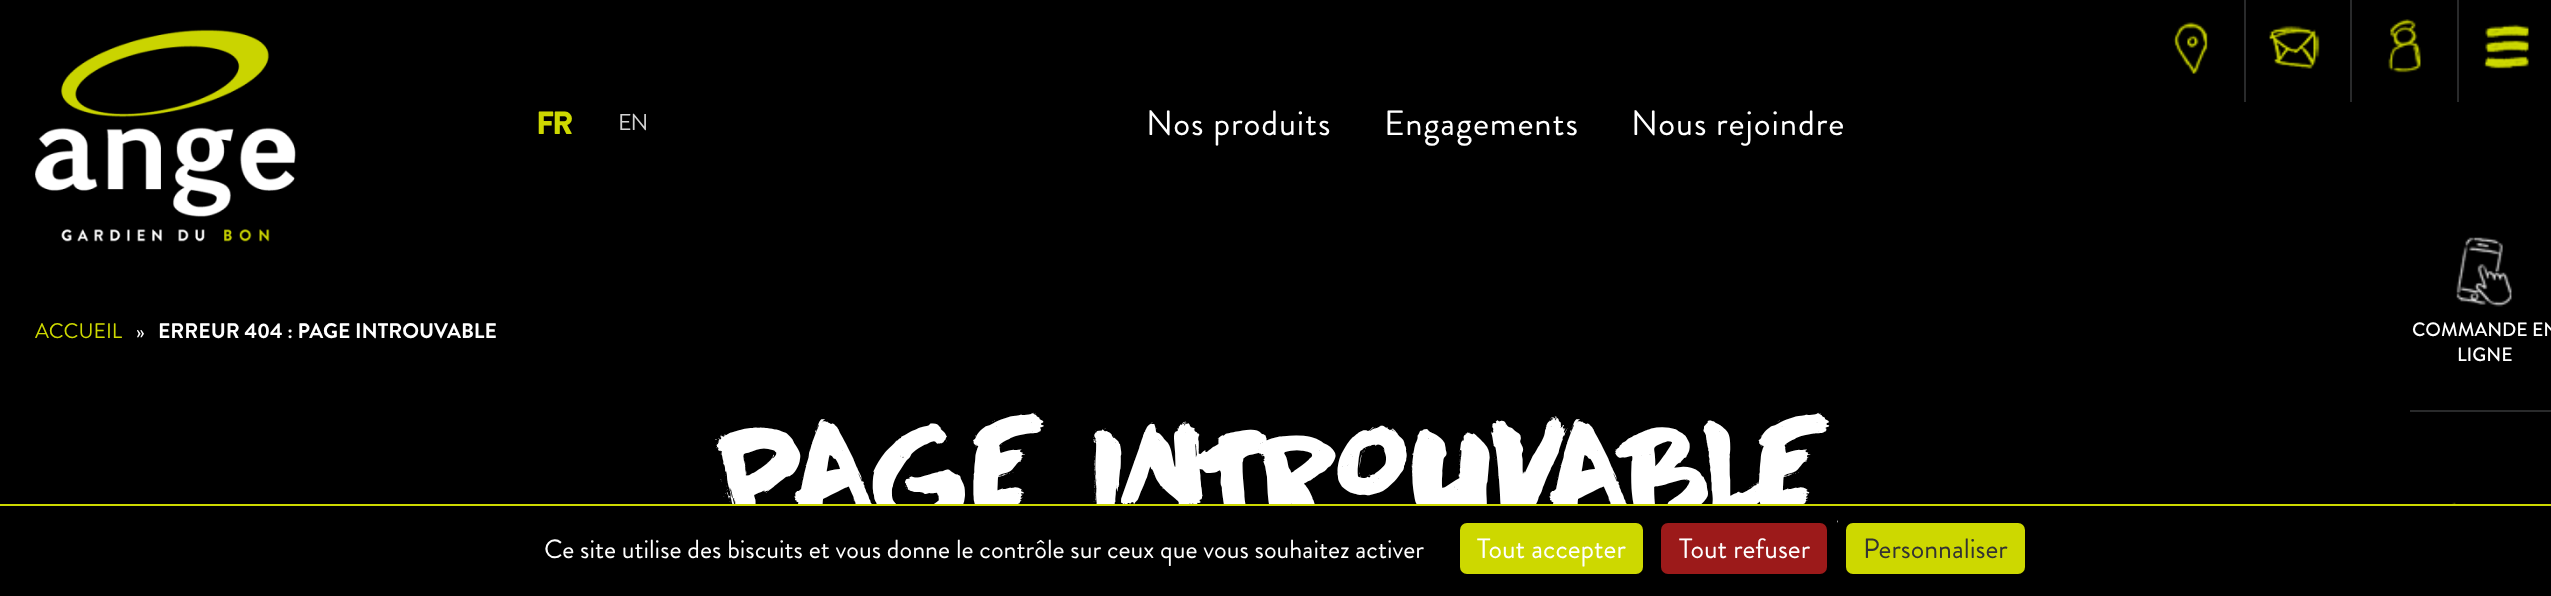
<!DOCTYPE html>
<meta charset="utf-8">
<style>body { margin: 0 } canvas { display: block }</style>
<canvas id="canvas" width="2551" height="596"></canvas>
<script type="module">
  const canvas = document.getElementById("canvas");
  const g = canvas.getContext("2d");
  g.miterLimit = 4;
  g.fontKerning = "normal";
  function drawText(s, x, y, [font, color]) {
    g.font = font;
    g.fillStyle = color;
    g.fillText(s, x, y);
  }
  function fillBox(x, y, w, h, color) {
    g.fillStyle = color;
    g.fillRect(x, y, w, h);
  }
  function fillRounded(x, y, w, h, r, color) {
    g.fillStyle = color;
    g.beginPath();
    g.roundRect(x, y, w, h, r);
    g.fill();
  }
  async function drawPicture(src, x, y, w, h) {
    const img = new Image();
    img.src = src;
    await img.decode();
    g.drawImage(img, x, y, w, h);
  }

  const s1 = ["900 32px Brandon Grotesque", "#CDD800"];
  const s2 = ["23px Brandon Grotesque", "#D3D3D3"];
  const s3 = ["35px Brandon Grotesque", "#FFFFFF"];
  const s4 = ["21px Brandon Grotesque", "#CDD800"];
  const s5 = ["21px Brandon Grotesque", "#FFFFFF"];
  const s6 = ["bold 21px Brandon Grotesque", "#FFFFFF"];
  const s7 = ["134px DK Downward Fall", "#FFFFFF"];
  const s8 = ["500 19.25px Brandon Grotesque", "#FFFFFF"];
  const s9 = ["26.25px Brandon Grotesque", "#FFFFFF"];
  const s10 = ["28px Brandon Grotesque", "#FFFFFF"];
  const s11 = ["28px Brandon Grotesque", "#333333"];

  fillBox(0, 0, 2551, 596, "#000000");
  await drawPicture("pic1.png", 35, 29, 261, 213);
  g.letterSpacing = "-2px";
  drawText("FR", 536, 134, s1);
  g.letterSpacing = "-1px";
  drawText("EN", 618, 130, s2);
  g.letterSpacing = "0.9px";
  drawText("Nos produits", 1146, 135, s3);
  drawText("Engagements", 1384, 135, s3);
  drawText("Nous rejoindre", 1631, 135, s3);
  await drawPicture("pic2.png", 2173, 22, 35, 52);
  fillBox(2244, 0, 2, 102, "#292A2B");
  await drawPicture("pic3.png", 2269, 25, 51, 44);
  fillBox(2350, 0, 2, 102, "#292A2B");
  await drawPicture("pic4.png", 2388, 19, 33, 54);
  fillBox(2457, 0, 2, 102, "#292A2B");
  await drawPicture("pic5.png", 2483, 24, 46, 45);
  g.letterSpacing = "0px";
  drawText("ACCUEIL", 35, 338, s4);
  drawText("»", 136, 338, s5);
  drawText("ERREUR 404 : PAGE INTROUVABLE", 158, 338, s6);
  drawText("PAGE INTROUVABLE.", 711, 527, s7);
  fillBox(2410, 410, 141, 2, "#292A2B");
  await drawPicture("pic6.png", 2456, 237, 56, 70);
  drawText("COMMANDE EN", 2412, 336, s8);
  drawText("LIGNE", 2457, 361, s8);
  await drawPicture("pic7.png", 2452, 502, 4, 2);
  fillBox(732, 506, 1105, 41, "#000000");
  fillBox(0, 504, 2551, 2, "#CDD800");
  drawText("Ce site utilise des biscuits et vous donne le contrôle sur ceux que vous souhaitez activer", 544, 558, s9);
  fillRounded(1460, 523, 183, 51, 7, "#CDD800");
  drawText("Tout accepter", 1477, 558, s10);
  fillRounded(1661, 523, 166, 51, 7, "#9C1A1A");
  drawText("Tout refuser", 1679, 558, s10);
  fillRounded(1846, 523, 179, 51, 7, "#CDD800");
  drawText("Personnaliser", 1863, 558, s11);
</script>
